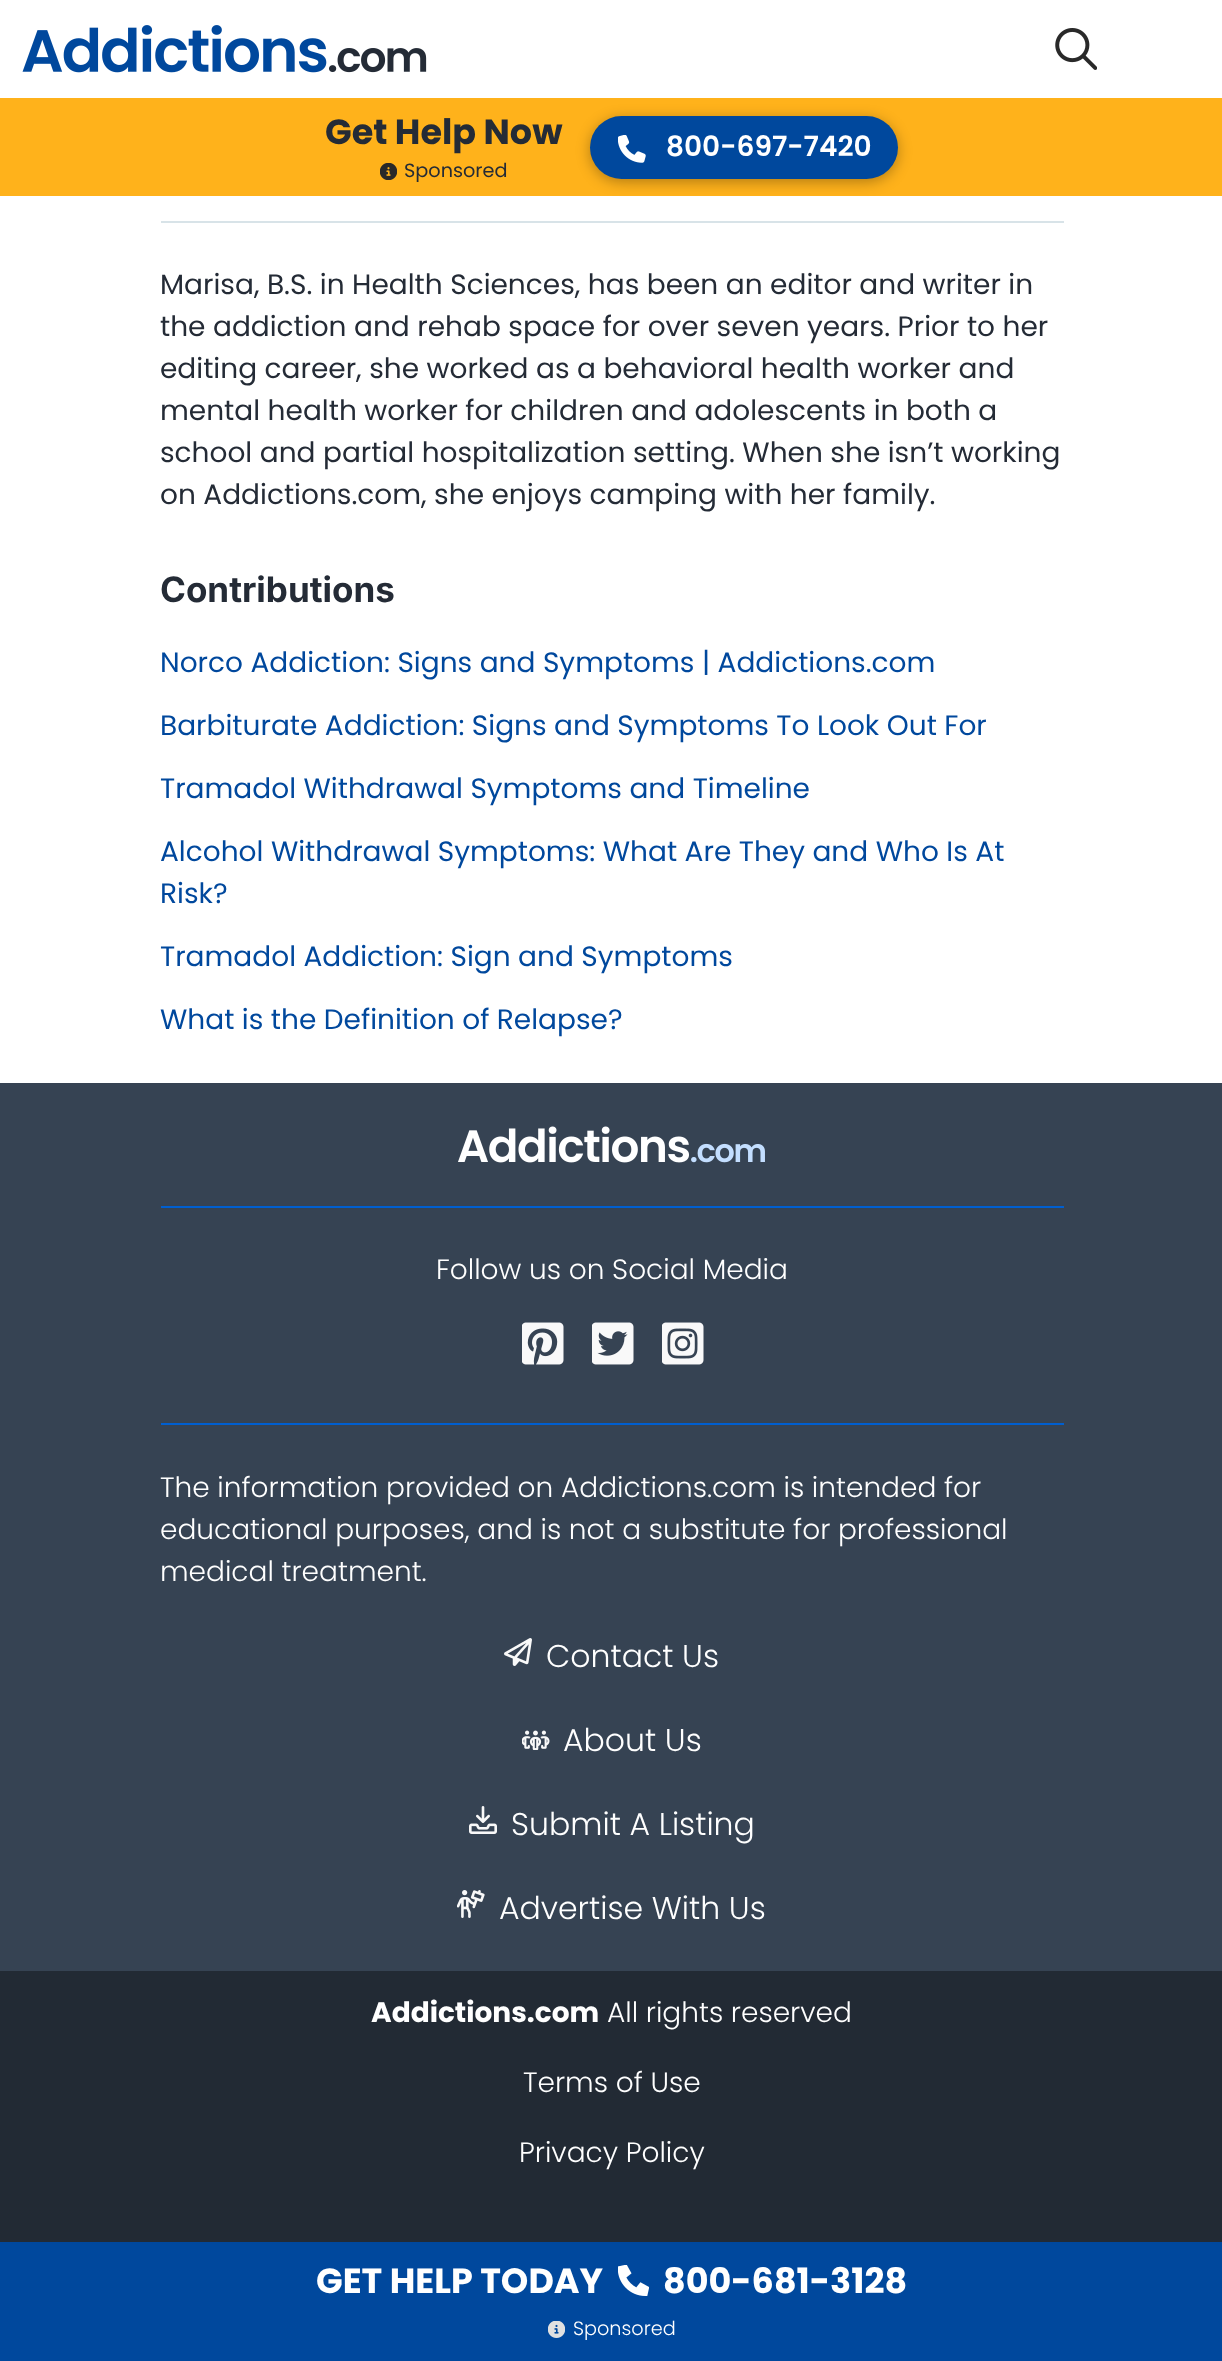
<!DOCTYPE html>
<meta charset="utf-8">
<style>body { margin: 0 } canvas { display: block }</style>
<canvas id="canvas" width="1222" height="2361"></canvas>
<script type="module">
  const canvas = document.getElementById("canvas");
  const g = canvas.getContext("2d");
  g.miterLimit = 4;
  g.fontKerning = "normal";
  function drawText(s, x, y, [font, color]) {
    g.font = font;
    g.fillStyle = color;
    g.fillText(s, x, y);
  }
  function fillBox(x, y, w, h, color) {
    g.fillStyle = color;
    g.fillRect(x, y, w, h);
  }
  function fillRounded(x, y, w, h, r, color) {
    g.fillStyle = color;
    g.beginPath();
    g.roundRect(x, y, w, h, r);
    g.fill();
  }
  async function drawPicture(src, x, y, w, h) {
    const img = new Image();
    img.src = src;
    await img.decode();
    g.drawImage(img, x, y, w, h);
  }

  const s1 = ["bold 35px Poppins", "#242B36"];
  const s2 = ["600 28px Poppins", "#FFFFFF"];
  const s3 = ["19.25px Poppins", "#242B36"];
  const s4 = ["28px Poppins", "#242B36"];
  const s5 = ["bold 35px Inter", "#242B36"];
  const s6 = ["28px Poppins", "#00489D"];
  const s7 = ["300 28px Poppins", "#FFFFFF"];
  const s8 = ["300 31.5px Poppins", "#FFFFFF"];
  const s9 = ["bold 28px Poppins", "#FFFFFF"];
  const s10 = ["bold 35px Poppins", "#FFFFFF"];
  const s11 = ["300 19.25px Poppins", "#FFFFFF"];

  fillBox(0, 0, 1222, 2361, "#FFFFFF");
  await drawPicture("pic1.png", 22, 25, 405, 48);
  await drawPicture("pic2.png", 1055, 28, 42, 42);
  fillBox(0, 98, 1222, 98, "#FFB21B");
  drawText("Get Help Now", 325, 144, s1);
  g.fillStyle = "rgba(0, 0, 0, 0.3)";
  g.filter = "blur(7px)";
  g.beginPath();
  g.roundRect(590, 119, 308, 63, 31.5);
  g.fill();
  g.filter = "none";
  fillRounded(590, 116, 308, 63, 31.5, "#00489D");
  await drawPicture("pic3.png", 618, 135, 28, 28);
  drawText("800-697-7420", 666, 156, s2);
  await drawPicture("pic4.png", 380, 163, 17, 17);
  drawText("Sponsored", 404, 177, s3);
  fillBox(161, 221, 903, 2, "#D8E3E8");
  drawText("Marisa, B.S. in Health Sciences, has been an editor and writer in", 160, 294, s4);
  drawText("the addiction and rehab space for over seven years. Prior to her", 160, 336, s4);
  drawText("editing career, she worked as a behavioral health worker and", 160, 378, s4);
  drawText("mental health worker for children and adolescents in both a", 160, 420, s4);
  drawText("school and partial hospitalization setting. When she isn’t working", 160, 462, s4);
  drawText("on Addictions.com, she enjoys camping with her family.", 160, 504, s4);
  drawText("Contributions", 160, 602, s5);
  drawText("Norco Addiction: Signs and Symptoms | Addictions.com", 160, 672, s6);
  drawText("Barbiturate Addiction: Signs and Symptoms To Look Out For", 160, 735, s6);
  drawText("Tramadol Withdrawal Symptoms and Timeline", 160, 798, s6);
  drawText("Alcohol Withdrawal Symptoms: What Are They and Who Is At", 160, 861, s6);
  drawText("Risk?", 160, 903, s6);
  drawText("Tramadol Addiction: Sign and Symptoms", 160, 966, s6);
  drawText("What is the Definition of Relapse?", 160, 1029, s6);
  fillBox(0, 1971, 1222, 271, "#222A34");
  fillBox(0, 1083, 1222, 888, "#364353");
  await drawPicture("pic5.png", 458, 1126, 307, 37);
  fillBox(161, 1206, 903, 2, "#005FD0");
  fillBox(161, 1423, 903, 2, "#005FD0");
  drawText("Follow us on Social Media", 436, 1279, s7);
  await drawPicture("pic6.png", 522, 1322, 42, 43);
  await drawPicture("pic7.png", 592, 1322, 42, 43);
  await drawPicture("pic8.png", 662, 1322, 42, 43);
  drawText("The information provided on Addictions.com is intended for", 160, 1497, s7);
  drawText("educational purposes, and is not a substitute for professional", 160, 1539, s7);
  drawText("medical treatment.", 160, 1581, s7);
  await drawPicture("pic9.png", 504, 1638, 28, 28);
  drawText("Contact Us", 546, 1667, s8);
  await drawPicture("pic10.png", 522, 1730, 28, 20);
  drawText("About Us", 563, 1751, s8);
  await drawPicture("pic11.png", 469, 1806, 28, 28);
  drawText("Submit A Listing", 511, 1835, s8);
  await drawPicture("pic12.png", 457, 1890, 28, 28);
  drawText("Advertise With Us", 499, 1919, s8);
  drawText("Addictions.com", 371, 2022, s9);
  drawText("All rights reserved", 607, 2022, s7);
  drawText("Terms of Use", 523, 2092, s7);
  drawText("Privacy Policy", 519, 2162, s7);
  fillBox(0, 2242, 1222, 119, "#00489D");
  drawText("GET HELP TODAY", 316, 2293, s10);
  await drawPicture("pic13.png", 618, 2265, 31, 31);
  drawText("800-681-3128", 663, 2293, s10);
  await drawPicture("pic14.png", 548, 2321, 17, 17);
  drawText("Sponsored", 573, 2335, s11);
</script>
